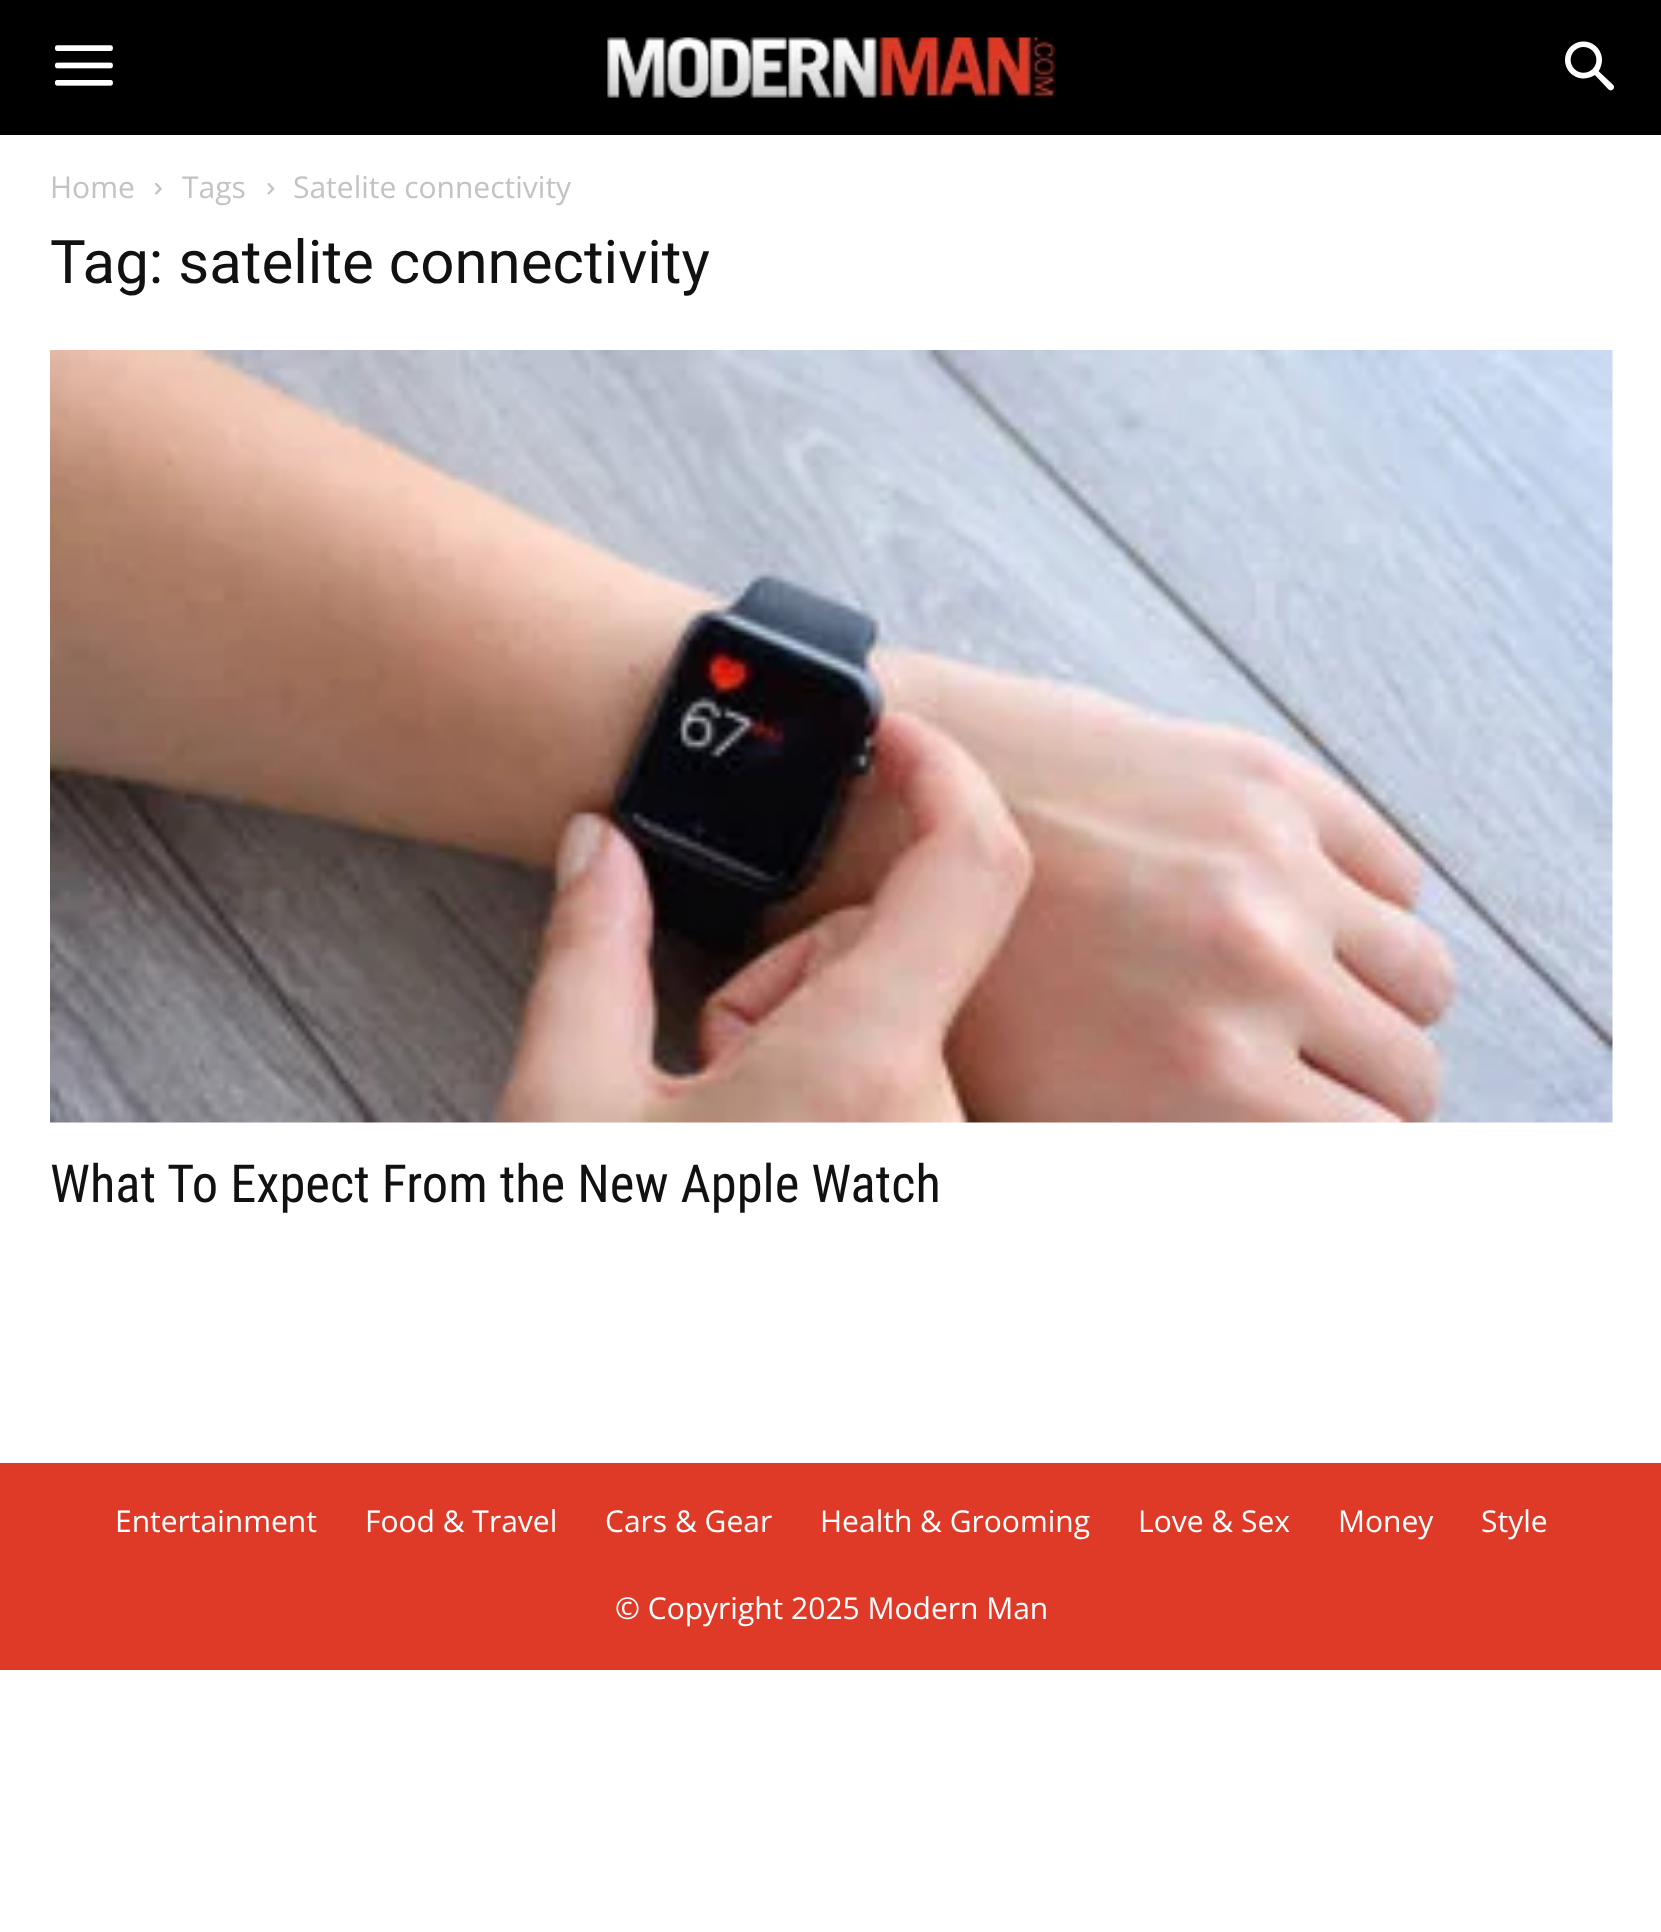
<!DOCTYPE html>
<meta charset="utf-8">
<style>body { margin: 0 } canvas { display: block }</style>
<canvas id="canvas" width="1661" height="1932"></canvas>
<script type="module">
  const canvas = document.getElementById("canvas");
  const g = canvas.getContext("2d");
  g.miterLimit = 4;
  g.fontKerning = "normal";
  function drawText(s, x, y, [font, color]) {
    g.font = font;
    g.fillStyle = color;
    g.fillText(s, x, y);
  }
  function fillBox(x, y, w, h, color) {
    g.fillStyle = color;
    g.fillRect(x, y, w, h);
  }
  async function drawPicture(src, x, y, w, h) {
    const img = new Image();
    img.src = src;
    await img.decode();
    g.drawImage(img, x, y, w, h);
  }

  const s1 = ["30px Open Sans", "#C3C3C3"];
  const s2 = ["60px Roboto", "#111111"];
  const s3 = ["52.5px Roboto Condensed", "#111111"];
  const s4 = ["30px Open Sans", "#FFFFFF"];

  fillBox(0, 0, 1661, 1932, "#FFFFFF");
  fillBox(0, 0, 1661, 135, "#000000");
  await drawPicture("pic1.png", 55, 45, 58, 41);
  await drawPicture("pic2.png", 607, 37, 448, 61);
  await drawPicture("pic3.png", 1565, 41, 49, 50);
  drawText("Home", 50, 198, s1);
  await drawPicture("pic4.png", 155, 183, 7, 12);
  drawText("Tags", 182, 198, s1);
  await drawPicture("pic5.png", 267, 183, 8, 12);
  drawText("Satelite connectivity", 293, 198, s1);
  drawText("Tag: satelite connectivity", 50, 283, s2);
  await drawPicture("pic6.png", 50, 350, 1563, 773);
  drawText("What To Expect From the New Apple Watch", 50, 1202, s3);
  fillBox(0, 1463, 1661, 207, "#DF3A27");
  drawText("Entertainment", 115, 1532, s4);
  drawText("Food & Travel", 365, 1532, s4);
  drawText("Cars & Gear", 605, 1532, s4);
  drawText("Health & Grooming", 820, 1532, s4);
  drawText("Love & Sex", 1138, 1532, s4);
  drawText("Money", 1338, 1532, s4);
  drawText("Style", 1481, 1532, s4);
  drawText("© Copyright 2025 Modern Man", 615, 1619, s4);
</script>
